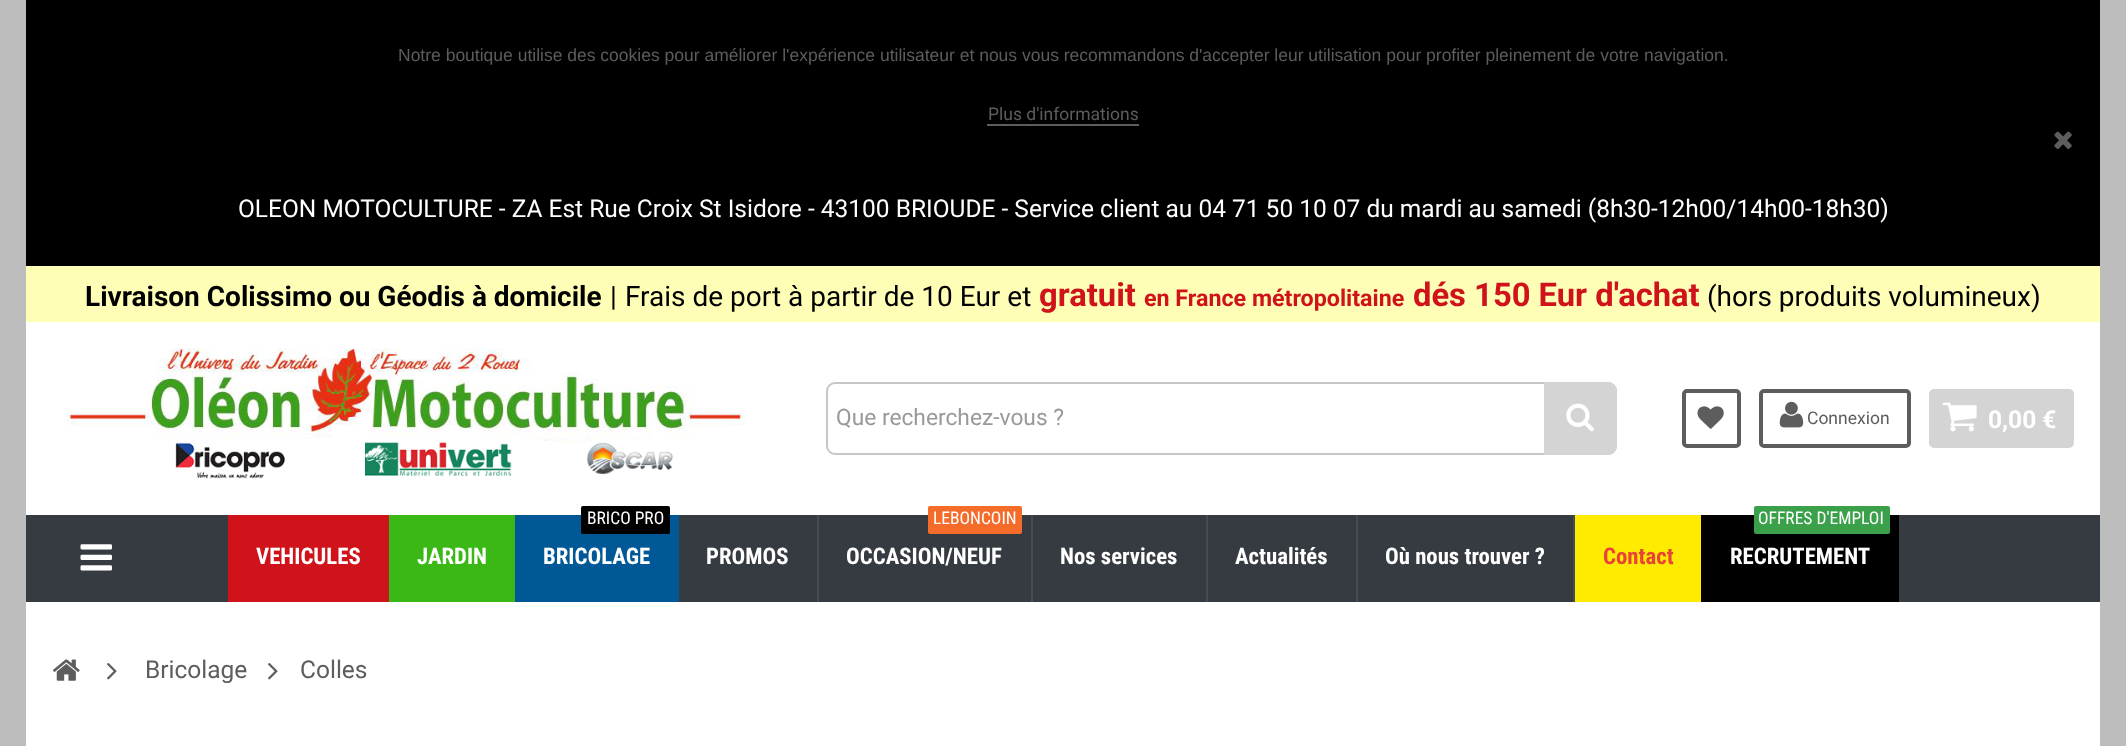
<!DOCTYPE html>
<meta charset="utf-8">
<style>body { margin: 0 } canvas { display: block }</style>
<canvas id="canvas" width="2126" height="746"></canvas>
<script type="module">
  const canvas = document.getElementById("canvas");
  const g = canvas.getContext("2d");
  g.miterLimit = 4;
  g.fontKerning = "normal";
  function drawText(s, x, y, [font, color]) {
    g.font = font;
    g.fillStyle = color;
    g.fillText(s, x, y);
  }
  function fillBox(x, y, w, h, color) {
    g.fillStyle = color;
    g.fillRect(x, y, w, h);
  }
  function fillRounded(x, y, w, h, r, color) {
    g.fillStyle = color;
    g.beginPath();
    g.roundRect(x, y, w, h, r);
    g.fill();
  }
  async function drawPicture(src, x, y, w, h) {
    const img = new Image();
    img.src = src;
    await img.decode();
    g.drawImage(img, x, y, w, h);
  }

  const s1 = ["17.5px Liberation Sans", "#5D5D5D"];
  const s2 = ["17.5px Roboto", "#5D5D5D"];
  const s3 = ["24.5px Roboto", "#FFFFFF"];
  const s4 = ["bold 28px Roboto", "#000000"];
  const s5 = ["28px Roboto", "#000000"];
  const s6 = ["bold 32.75px Roboto", "#D0121A"];
  const s7 = ["bold 23.25px Roboto", "#D0121A"];
  const s8 = ["22.75px Roboto", "#999999"];
  const s9 = ["bold 24.5px Roboto", "#FFFFFF"];
  const s10 = ["bold 22.75px Roboto Condensed", "#FFFFFF"];
  const s11 = ["17.5px Roboto Condensed", "#FFFFFF"];
  const s12 = ["bold 22.75px Roboto Condensed", "#E84335"];
  const s13 = ["24.5px Roboto", "#5D5D5D"];

  fillBox(0, 0, 2126, 746, "#BDBDBD");
  fillBox(26, 0, 2074, 266, "#000000");
  drawText("Notre boutique utilise des cookies pour améliorer l'expérience utilisateur et nous vous recommandons d'accepter leur utilisation pour profiter pleinement de votre navigation.", 398, 61, s1);
  drawText("Plus d'informations", 988, 120, s2);
  fillBox(987, 124, 152, 2, "#5D5D5D");
  await drawPicture("pic1.png", 2054, 131, 18, 18);
  drawText("OLEON MOTOCULTURE - ZA Est Rue Croix St Isidore - 43100 BRIOUDE - Service client au 04 71 50 10 07 du mardi au samedi (8h30-12h00/14h00-18h30)", 238, 217, s3);
  fillBox(26, 266, 2074, 56, "#FEFEB6");
  drawText("Livraison Colissimo ou Géodis à domicile", 85, 306, s4);
  drawText("|", 610, 306, s5);
  drawText("Frais de port à partir de 10 Eur et", 625, 306, s5);
  drawText("gratuit", 1039, 306, s6);
  drawText("en France métropolitaine", 1144, 306, s7);
  drawText("dés 150 Eur d'achat", 1413, 306, s6);
  drawText("(hors produits volumineux)", 1707, 306, s5);
  fillBox(26, 322, 2074, 424, "#FFFFFF");
  await drawPicture("pic2.png", 63, 348, 682, 131);
  g.beginPath();
  g.roundRect(827, 383, 789, 71, 8);
  g.strokeStyle = "#C7C7C7";
  g.lineWidth = 2;
  g.stroke();
  drawText("Que recherchez-vous ?", 836, 425, s8);
  g.fillStyle = "#D4D4D4";
  g.beginPath();
  g.roundRect(1544, 382, 73, 73, [0, 9, 9, 0]);
  g.fill();
  await drawPicture("pic3.png", 1566, 403, 28, 29);
  g.beginPath();
  g.roundRect(1684, 391, 55, 55, 3);
  g.strokeStyle = "#5D5D5D";
  g.lineWidth = 4;
  g.stroke();
  await drawPicture("pic4.png", 1697, 406, 27, 23);
  g.beginPath();
  g.roundRect(1761, 391, 148, 55, 3);
  g.stroke();
  await drawPicture("pic5.png", 1779, 401, 25, 27);
  drawText("Connexion", 1807, 424, s2);
  fillRounded(1929, 389, 145, 59, 5, "#D4D4D4");
  await drawPicture("pic6.png", 1942, 402, 35, 30);
  drawText("0,00 €", 1988, 428, s9);
  fillBox(26, 515, 2074, 87, "#363A41");
  await drawPicture("pic7.png", 80, 544, 32, 27);
  fillBox(228, 515, 161, 87, "#D0121A");
  drawText("VEHICULES", 256, 564, s10);
  fillBox(389, 515, 126, 87, "#3AB916");
  drawText("JARDIN", 417, 564, s10);
  fillBox(515, 515, 164, 87, "#005996");
  fillRounded(581, 506, 89, 28, 2, "#000000");
  drawText("BRICO PRO", 587, 524, s11);
  drawText("BRICOLAGE", 543, 564, s10);
  fillBox(817, 515, 2, 87, "#464B54");
  drawText("PROMOS", 706, 564, s10);
  fillBox(1031, 515, 2, 87, "#464B54");
  fillRounded(928, 506, 94, 28, 2, "#F56B2A");
  drawText("LEBONCOIN", 933, 524, s11);
  drawText("OCCASION/NEUF", 846, 564, s10);
  fillBox(1206, 515, 2, 87, "#464B54");
  drawText("Nos services", 1060, 564, s10);
  fillBox(1356, 515, 2, 87, "#464B54");
  drawText("Actualités", 1235, 564, s10);
  fillBox(1573, 515, 2, 87, "#464B54");
  drawText("Où nous trouver ?", 1385, 564, s10);
  fillBox(1575, 515, 126, 87, "#FFEB01");
  drawText("Contact", 1603, 564, s12);
  fillBox(1701, 515, 198, 87, "#000000");
  fillRounded(1754, 506, 136, 28, 2, "#3AA04A");
  drawText("OFFRES D'EMPLOI", 1758, 524, s11);
  drawText("RECRUTEMENT", 1730, 564, s10);
  await drawPicture("pic8.png", 53, 659, 27, 22);
  await drawPicture("pic9.png", 107, 663, 10, 17);
  drawText("Bricolage", 145, 678, s13);
  await drawPicture("pic9.png", 268, 663, 10, 17);
  drawText("Colles", 300, 678, s13);
</script>
